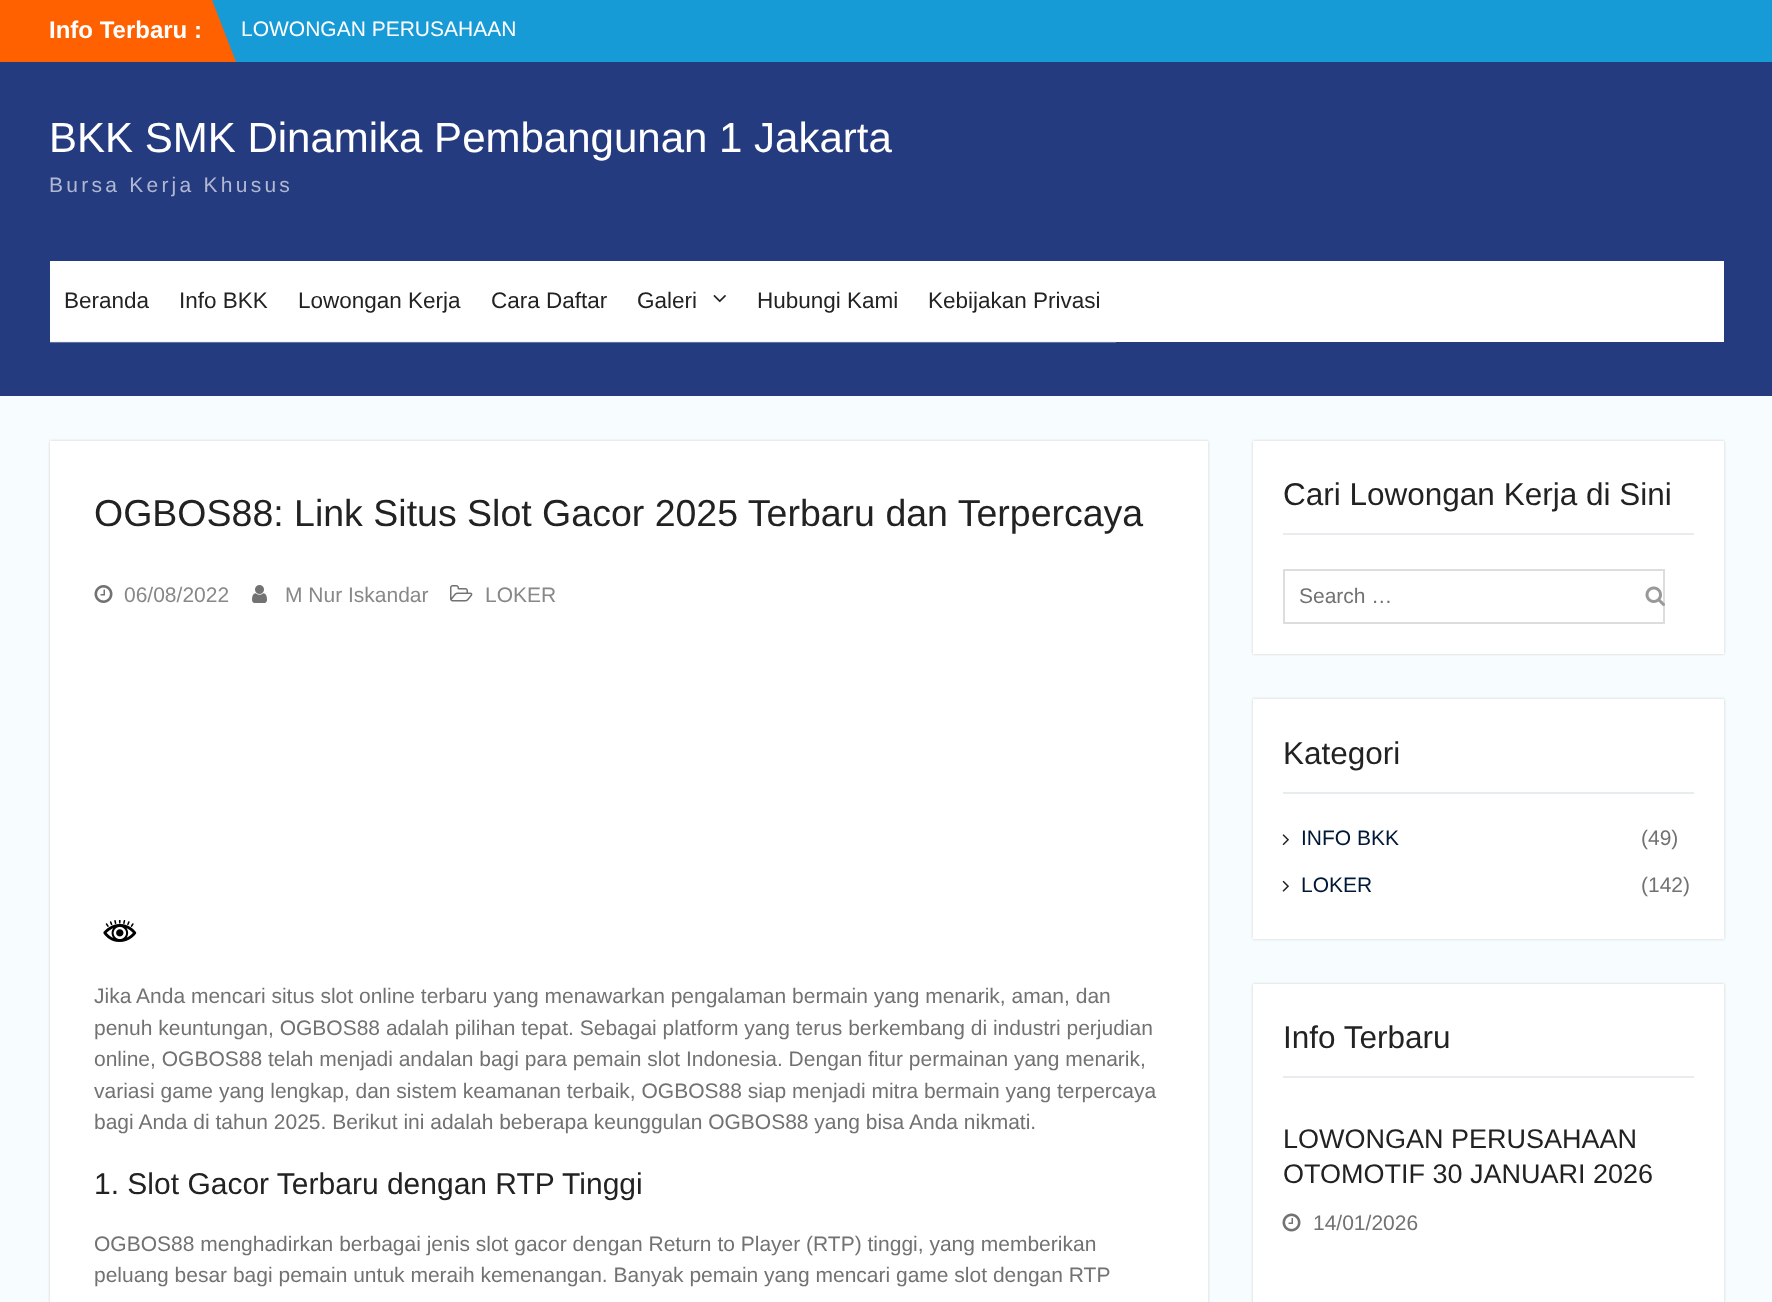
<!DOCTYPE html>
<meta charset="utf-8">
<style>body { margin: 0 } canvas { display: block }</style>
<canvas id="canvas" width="1772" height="1302"></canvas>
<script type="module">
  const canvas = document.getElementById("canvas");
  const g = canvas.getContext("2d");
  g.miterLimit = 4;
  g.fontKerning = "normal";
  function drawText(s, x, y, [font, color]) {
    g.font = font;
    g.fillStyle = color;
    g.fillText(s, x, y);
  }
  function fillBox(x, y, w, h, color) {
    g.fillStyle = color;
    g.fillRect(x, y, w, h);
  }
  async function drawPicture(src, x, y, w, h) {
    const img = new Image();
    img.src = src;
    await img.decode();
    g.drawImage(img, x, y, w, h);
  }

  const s1 = ["bold 24px Liberation Sans", "#FFFFFF"];
  const s2 = ["21px Liberation Sans", "#FFFFFF"];
  const s3 = ["42px Liberation Sans", "#FFFFFF"];
  const s4 = ["21px Liberation Sans", "#B1B8D1"];
  const s5 = ["22.5px Liberation Sans", "#222222"];
  const s6 = ["37.5px Liberation Sans", "#222222"];
  const s7 = ["21px Liberation Sans", "#888888"];
  const s8 = ["21px Liberation Sans", "#727272"];
  const s9 = ["30px Liberation Sans", "#222222"];
  const s10 = ["31.5px Liberation Sans", "#222222"];
  const s11 = ["21px Liberation Sans", "#001837"];
  const s12 = ["27px Liberation Sans", "#222222"];

  fillBox(0, 0, 1772, 1302, "#F7FCFE");
  fillBox(212, 0, 1560, 62, "#179BD7");
  fillBox(0, 0, 212, 62, "#FF6000");
  drawText("Info Terbaru :", 49, 38, s1);
  g.fillStyle = "#FF6000";
  g.beginPath();
  g.moveTo(212, 62);
  g.lineTo(212, 0);
  g.lineTo(236, 62);
  g.closePath();
  g.fill();
  drawText("LOWONGAN PERUSAHAAN", 241, 36, s2);
  fillBox(0, 62, 1772, 334, "#253B80");
  drawText("BKK SMK Dinamika Pembangunan 1 Jakarta", 49, 152, s3);
  g.letterSpacing = "3.25px";
  drawText("Bursa Kerja Khusus", 49, 192, s4);
  fillBox(50, 261, 1674, 81, "#FFFFFF");
  fillBox(50, 341, 1066, 1, "#F3F3F3");
  g.letterSpacing = "0px";
  drawText("Beranda", 64, 308, s5);
  drawText("Info BKK", 179, 308, s5);
  drawText("Lowongan Kerja", 298, 308, s5);
  drawText("Cara Daftar", 491, 308, s5);
  drawText("Galeri", 637, 308, s5);
  await drawPicture("pic1.png", 713, 295, 13, 8);
  drawText("Hubungi Kami", 757, 308, s5);
  drawText("Kebijakan Privasi", 928, 308, s5);
  fillBox(50, 342, 1066, 1, "#6472A0");
  g.fillStyle = "#CFCFCF";
  g.filter = "blur(1.5px)";
  g.beginPath();
  g.rect(50, 441, 1158, 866);
  g.fill();
  g.filter = "none";
  fillBox(50, 441, 1158, 861, "#FFFFFF");
  drawText("OGBOS88: Link Situs Slot Gacor 2025 Terbaru dan Terpercaya", 94, 526, s6);
  await drawPicture("pic2.png", 94, 585, 19, 18);
  drawText("06/08/2022", 124, 602, s7);
  await drawPicture("pic3.png", 252, 585, 15, 18);
  drawText("M Nur Iskandar", 285, 602, s7);
  await drawPicture("pic4.png", 450, 585, 23, 17);
  drawText("LOKER", 485, 602, s7);
  await drawPicture("pic5.png", 103, 920, 34, 22);
  drawText("Jika Anda mencari situs slot online terbaru yang menawarkan pengalaman bermain yang menarik, aman, dan", 94, 1003, s8);
  drawText("penuh keuntungan, OGBOS88 adalah pilihan tepat. Sebagai platform yang terus berkembang di industri perjudian", 94, 1035, s8);
  drawText("online, OGBOS88 telah menjadi andalan bagi para pemain slot Indonesia. Dengan fitur permainan yang menarik,", 94, 1066, s8);
  drawText("variasi game yang lengkap, dan sistem keamanan terbaik, OGBOS88 siap menjadi mitra bermain yang terpercaya", 94, 1098, s8);
  drawText("bagi Anda di tahun 2025. Berikut ini adalah beberapa keunggulan OGBOS88 yang bisa Anda nikmati.", 94, 1129, s8);
  drawText("1. Slot Gacor Terbaru dengan RTP Tinggi", 94, 1194, s9);
  drawText("OGBOS88 menghadirkan berbagai jenis slot gacor dengan Return to Player (RTP) tinggi, yang memberikan", 94, 1251, s8);
  drawText("peluang besar bagi pemain untuk meraih kemenangan. Banyak pemain yang mencari game slot dengan RTP", 94, 1282, s8);
  g.fillStyle = "#CFCFCF";
  g.filter = "blur(1.5px)";
  g.beginPath();
  g.rect(1253, 441, 471, 213);
  g.fill();
  g.filter = "none";
  fillBox(1253, 441, 471, 213, "#FFFFFF");
  fillBox(1283, 533, 411, 2, "#E7ECEF");
  drawText("Cari Lowongan Kerja di Sini", 1283, 505, s10);
  g.strokeStyle = "#DDDDDD";
  g.lineWidth = 2;
  g.strokeRect(1284, 570, 380, 53);
  drawText("Search …", 1299, 603, s8);
  await drawPicture("pic6.png", 1645, 586, 20, 20);
  g.fillStyle = "#CFCFCF";
  g.filter = "blur(1.5px)";
  g.beginPath();
  g.rect(1253, 699, 471, 240);
  g.fill();
  g.filter = "none";
  fillBox(1253, 699, 471, 240, "#FFFFFF");
  fillBox(1283, 792, 411, 2, "#E7ECEF");
  drawText("Kategori", 1283, 764, s10);
  await drawPicture("pic7.png", 1282, 834, 7, 12);
  drawText("INFO BKK", 1301, 845, s11);
  drawText("(49)", 1641, 845, s8);
  await drawPicture("pic8.png", 1282, 880, 7, 12);
  drawText("LOKER", 1301, 892, s11);
  drawText("(142)", 1641, 892, s8);
  g.fillStyle = "#CFCFCF";
  g.filter = "blur(1.5px)";
  g.beginPath();
  g.rect(1253, 984, 471, 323);
  g.fill();
  g.filter = "none";
  fillBox(1253, 984, 471, 318, "#FFFFFF");
  fillBox(1283, 1076, 411, 2, "#E7ECEF");
  drawText("Info Terbaru", 1283, 1048, s10);
  drawText("LOWONGAN PERUSAHAAN", 1283, 1148, s12);
  drawText("OTOMOTIF 30 JANUARI 2026", 1283, 1183, s12);
  await drawPicture("pic9.png", 1282, 1213, 19, 19);
  drawText("14/01/2026", 1313, 1230, s8);
</script>
